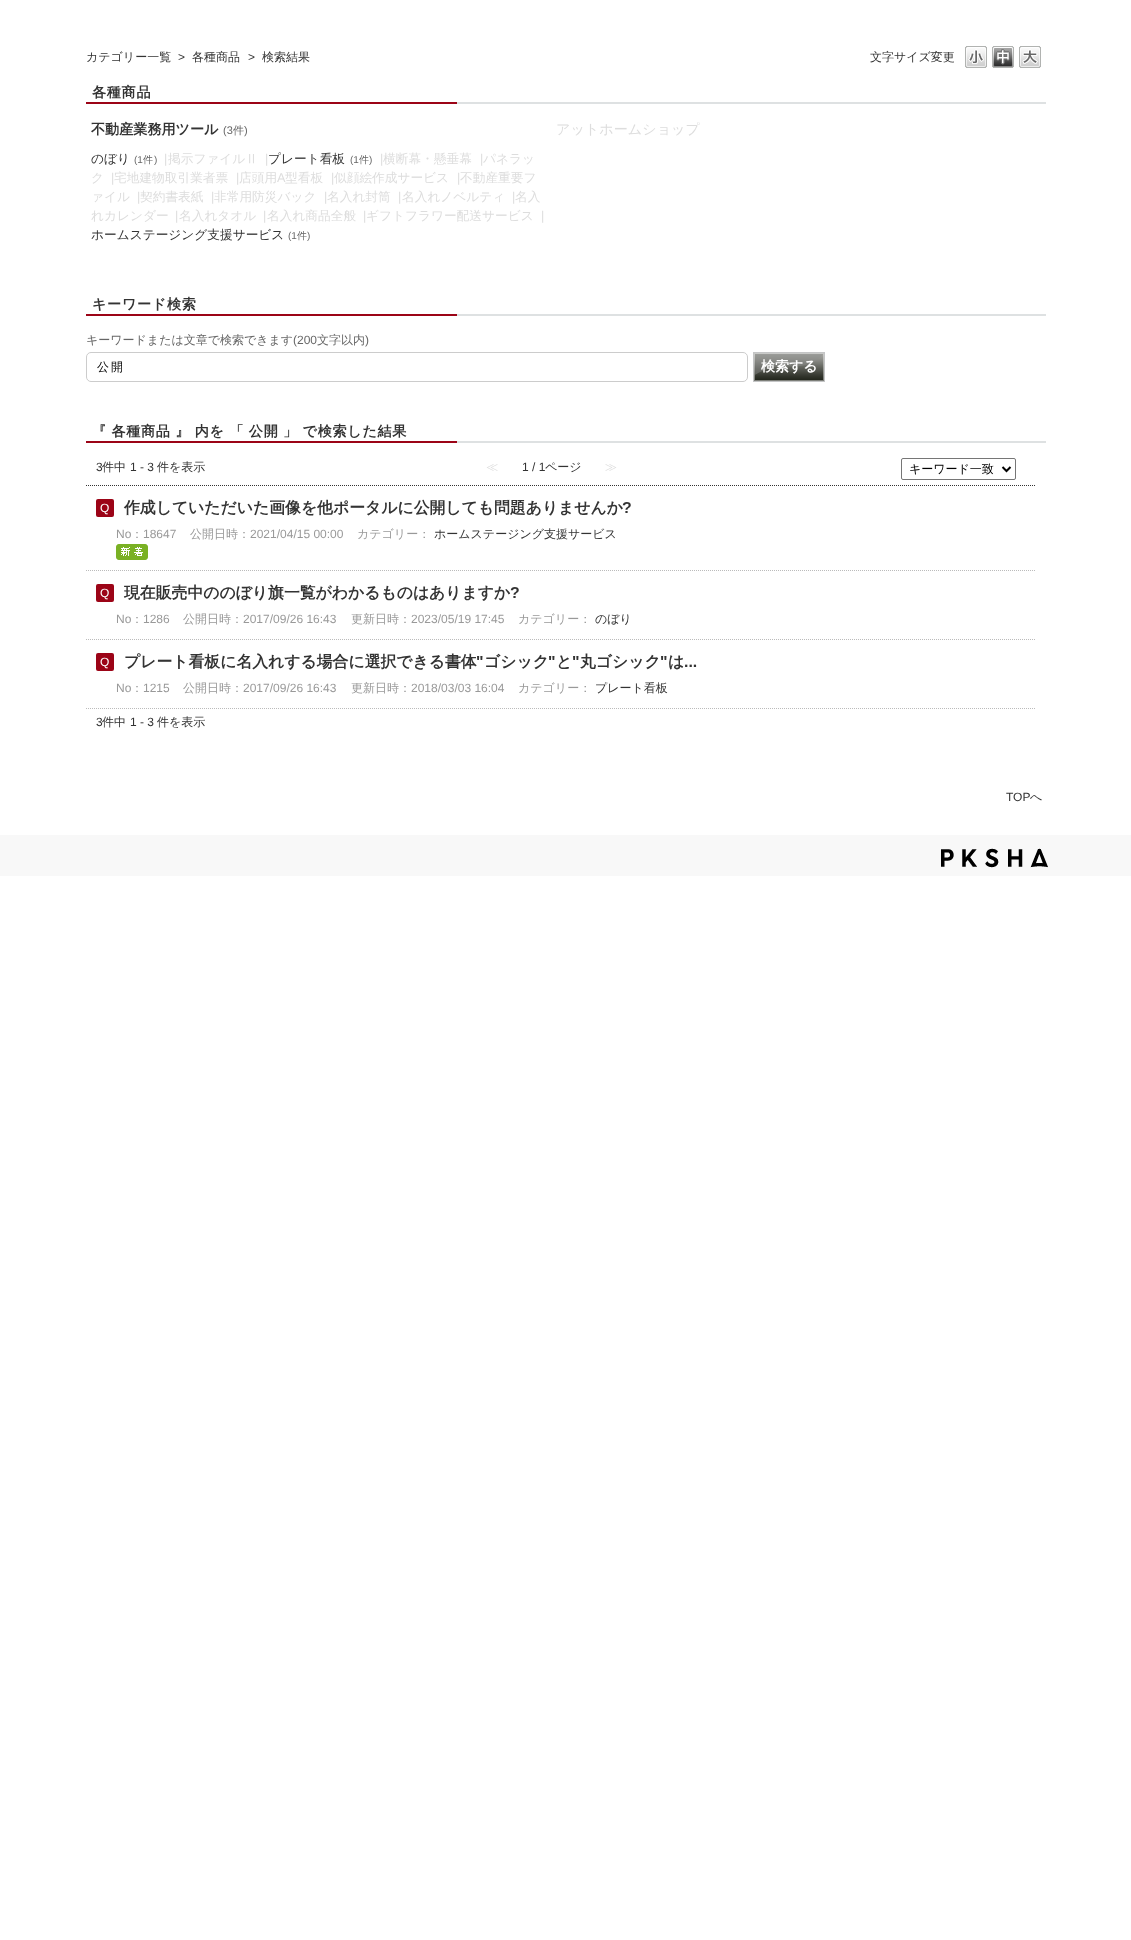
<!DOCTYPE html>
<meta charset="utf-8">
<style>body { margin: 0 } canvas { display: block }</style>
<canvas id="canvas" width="1131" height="1940"></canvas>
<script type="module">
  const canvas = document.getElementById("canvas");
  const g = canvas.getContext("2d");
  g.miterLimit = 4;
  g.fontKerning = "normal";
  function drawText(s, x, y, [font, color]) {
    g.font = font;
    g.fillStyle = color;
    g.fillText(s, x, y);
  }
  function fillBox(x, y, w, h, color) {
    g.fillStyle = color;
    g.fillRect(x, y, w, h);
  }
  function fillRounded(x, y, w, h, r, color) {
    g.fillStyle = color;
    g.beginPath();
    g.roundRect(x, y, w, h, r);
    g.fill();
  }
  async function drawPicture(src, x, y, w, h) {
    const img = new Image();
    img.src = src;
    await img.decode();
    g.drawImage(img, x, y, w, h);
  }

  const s1 = ["500 12px WenQuanYi Zen Hei", "#333333"];
  const s2 = ["12px Liberation Sans", "#333333"];
  const s3 = ["bold 14.1px WenQuanYi Zen Hei", "#333333"];
  const s4 = ["11px Liberation Sans", "#666666"];
  const s5 = ["500 11px WenQuanYi Zen Hei", "#666666"];
  const s6 = ["500 12.7px WenQuanYi Zen Hei", "#333333"];
  const s7 = ["10px Liberation Sans", "#666666"];
  const s8 = ["500 10px WenQuanYi Zen Hei", "#666666"];
  const s9 = ["12.7px Liberation Sans", "#DDDDDD"];
  const s10 = ["500 12.7px WenQuanYi Zen Hei", "#DDDDDD"];
  const s11 = ["500 14.1px WenQuanYi Zen Hei", "#DDDDDD"];
  const s12 = ["500 12px WenQuanYi Zen Hei", "#666666"];
  const s13 = ["12px Liberation Sans", "#666666"];
  const s14 = ["500 12px WenQuanYi Zen Hei", "#000000"];
  const s15 = ["bold 14px WenQuanYi Zen Hei", "#FFFFFF"];
  const s16 = ["500 12px WenQuanYi Zen Hei", "#DDDDDD"];
  const s17 = ["12px Liberation Sans", "#FFFFFF"];
  const s18 = ["bold 15.85px WenQuanYi Zen Hei", "#333333"];
  const s19 = ["bold 15.85px Liberation Sans", "#333333"];
  const s20 = ["12px Liberation Sans", "#999999"];
  const s21 = ["500 12px WenQuanYi Zen Hei", "#999999"];

  fillBox(0, 0, 1131, 1940, "#FFFFFF");
  drawText("カテゴリー一覧", 86, 61, s1);
  drawText(">", 178, 61, s2);
  drawText("各種商品", 192, 61, s1);
  drawText(">", 248, 61, s2);
  drawText("検索結果", 262, 61, s1);
  drawText("文字サイズ変更", 870, 61, s1);
  await drawPicture("pic1.png", 965, 46, 22, 22);
  await drawPicture("pic2.png", 992, 46, 22, 22);
  await drawPicture("pic3.png", 1019, 46, 22, 22);
  fillBox(457, 102, 589, 2, "#DEE1E2");
  fillBox(86, 102, 371, 2, "#9C0417");
  g.letterSpacing = "0.7px";
  drawText("各種商品", 92, 97, s3);
  g.letterSpacing = "0px";
  drawText("不動産業務用ツール", 91, 134, s3);
  drawText("(3", 223, 134, s4);
  drawText("件", 233, 134, s5);
  drawText(")", 244, 134, s4);
  drawText("のぼり", 91, 163, s6);
  drawText("(1", 134, 163, s7);
  drawText("件", 143, 163, s8);
  drawText(")", 154, 163, s7);
  drawText("|", 164, 163, s9);
  drawText("掲示ファイルⅡ", 168, 163, s10);
  drawText("|", 265, 163, s9);
  drawText("プレート看板", 268, 163, s6);
  drawText("(1", 350, 163, s7);
  drawText("件", 359, 163, s8);
  drawText(")", 369, 163, s7);
  drawText("|", 380, 163, s9);
  drawText("横断幕・懸垂幕", 383, 163, s10);
  drawText("|", 480, 163, s9);
  drawText("パネラッ", 483, 163, s10);
  drawText("ク", 91, 182, s10);
  drawText("|", 111, 182, s9);
  drawText("宅地建物取引業者票", 114, 182, s10);
  drawText("|", 236, 182, s9);
  drawText("店頭用", 239, 182, s10);
  drawText("A", 277, 182, s9);
  drawText("型看板", 285, 182, s10);
  drawText("|", 331, 182, s9);
  drawText("似顔絵作成サービス", 334, 182, s10);
  drawText("|", 457, 182, s9);
  drawText("不動産重要フ", 460, 182, s10);
  drawText("ァイル", 91, 201, s10);
  drawText("|", 137, 201, s9);
  drawText("契約書表紙", 140, 201, s10);
  drawText("|", 211, 201, s9);
  drawText("非常用防災バック", 214, 201, s10);
  drawText("|", 324, 201, s9);
  drawText("名入れ封筒", 327, 201, s10);
  drawText("|", 398, 201, s9);
  drawText("名入れノベルティ", 402, 201, s10);
  drawText("|", 512, 201, s9);
  drawText("名入", 515, 201, s10);
  drawText("れカレンダー", 91, 220, s10);
  drawText("|", 175, 220, s9);
  drawText("名入れタオル", 179, 220, s10);
  drawText("|", 263, 220, s9);
  drawText("名入れ商品全般", 267, 220, s10);
  drawText("|", 363, 220, s9);
  drawText("ギフトフラワー配送サービス", 366, 220, s10);
  drawText("|", 541, 220, s9);
  drawText("ホームステージング支援サービス", 91, 239, s6);
  drawText("(1", 288, 239, s7);
  drawText("件", 297, 239, s8);
  drawText(")", 307, 239, s7);
  drawText("アットホームショップ", 556, 134, s11);
  fillBox(457, 314, 589, 2, "#DEE1E2");
  fillBox(86, 314, 371, 2, "#9C0417");
  g.letterSpacing = "0.7px";
  drawText("キーワード検索", 92, 309, s3);
  g.letterSpacing = "0px";
  drawText("キーワードまたは文章で検索できます", 86, 344, s12);
  drawText("(200", 293, 344, s13);
  drawText("文字以内", 317, 344, s12);
  drawText(")", 365, 344, s13);
  g.beginPath();
  g.roundRect(86.5, 352.5, 661, 29, 4.5);
  g.strokeStyle = "#CCCCCC";
  g.stroke();
  g.letterSpacing = "2px";
  drawText("公開", 97, 371, s14);
  await drawPicture("pic4.png", 753, 352, 72, 30);
  g.letterSpacing = "0px";
  drawText("検索する", 761, 371, s15);
  fillBox(457, 441, 589, 2, "#DEE1E2");
  fillBox(86, 441, 371, 2, "#9C0417");
  g.letterSpacing = "0.7px";
  g.wordSpacing = "-0.25px";
  drawText("『 各種商品 』 内を 「 公開 」 で検索した結果", 92, 436, s3);
  g.letterSpacing = "0px";
  g.wordSpacing = "0px";
  drawText("3", 96, 471, s2);
  drawText("件中", 102, 471, s1);
  drawText("1 - 3", 130, 471, s2);
  drawText("件を表示", 157, 471, s1);
  drawText("≪", 486, 471, s16);
  drawText("1 / 1", 522, 471, s2);
  drawText("ページ", 545, 471, s1);
  drawText("≫", 605, 471, s16);
  g.beginPath();
  g.roundRect(901.5, 458.5, 114, 21, 1.5);
  g.strokeStyle = "#767676";
  g.stroke();
  g.beginPath();
  g.moveTo(1002.5, 467);
  g.lineTo(1006.5, 471);
  g.lineTo(1010.5, 467);
  g.strokeStyle = "#000000";
  g.lineWidth = 2;
  g.stroke();
  drawText("キーワード一致", 909, 473, s14);
  g.beginPath();
  g.moveTo(86, 485.5);
  g.lineTo(1036, 485.5);
  g.strokeStyle = "#333333";
  g.lineWidth = 1;
  g.setLineDash([1, 1]);
  g.stroke();
  g.beginPath();
  g.moveTo(86, 570.5);
  g.lineTo(1036, 570.5);
  g.strokeStyle = "#BBBBBB";
  g.stroke();
  fillRounded(96, 499, 18, 18, 2, "#9C0417");
  drawText("Q", 100, 512, s17);
  drawText("作成していただいた画像を他ポータルに公開しても問題ありませんか", 124, 513, s18);
  drawText("?", 622, 513, s19);
  drawText("No", 116, 538, s20);
  drawText("：", 131, 538, s21);
  drawText("18647", 143, 538, s20);
  drawText("公開日時：", 190, 538, s21);
  drawText("2021/04/15 00:00", 250, 538, s20);
  drawText("カテゴリー：", 357, 538, s21);
  drawText("ホームステージング支援サービス", 434, 538, s1);
  await drawPicture("pic5.png", 116, 544, 32, 16);
  g.beginPath();
  g.moveTo(86, 639.5);
  g.lineTo(1036, 639.5);
  g.stroke();
  fillRounded(96, 584, 18, 18, 2, "#9C0417");
  drawText("Q", 100, 597, s17);
  drawText("現在販売中ののぼり旗一覧がわかるものはありますか", 124, 598, s18);
  drawText("?", 510, 598, s19);
  drawText("No", 116, 623, s20);
  drawText("：", 131, 623, s21);
  drawText("1286", 143, 623, s20);
  drawText("公開日時：", 183, 623, s21);
  drawText("2017/09/26 16:43", 243, 623, s20);
  drawText("更新日時：", 351, 623, s21);
  drawText("2023/05/19 17:45", 411, 623, s20);
  drawText("カテゴリー：", 518, 623, s21);
  drawText("のぼり", 595, 623, s1);
  g.beginPath();
  g.moveTo(86, 708.5);
  g.lineTo(1036, 708.5);
  g.stroke();
  fillRounded(96, 653, 18, 18, 2, "#9C0417");
  drawText("Q", 100, 666, s17);
  drawText("プレート看板に名入れする場合に選択できる書体", 124, 667, s18);
  drawText("\"", 476, 667, s19);
  drawText("ゴシック", 484, 667, s18);
  drawText("\"", 548, 667, s19);
  drawText("と", 556, 667, s18);
  drawText("\"", 572, 667, s19);
  drawText("丸ゴシック", 580, 667, s18);
  drawText("\"", 660, 667, s19);
  drawText("は", 668, 667, s18);
  drawText("...", 684, 667, s19);
  drawText("No", 116, 692, s20);
  drawText("：", 131, 692, s21);
  drawText("1215", 143, 692, s20);
  drawText("公開日時：", 183, 692, s21);
  drawText("2017/09/26 16:43", 243, 692, s20);
  drawText("更新日時：", 351, 692, s21);
  drawText("2018/03/03 16:04", 411, 692, s20);
  drawText("カテゴリー：", 518, 692, s21);
  drawText("プレート看板", 595, 692, s1);
  drawText("3", 96, 726, s2);
  drawText("件中", 102, 726, s1);
  drawText("1 - 3", 130, 726, s2);
  drawText("件を表示", 157, 726, s1);
  drawText("TOP", 1006, 801, s2);
  drawText("へ", 1030, 801, s1);
  fillBox(0, 835, 1131, 41, "#F8F8F8");
  await drawPicture("pic6.png", 941, 848, 107, 20);
</script>
